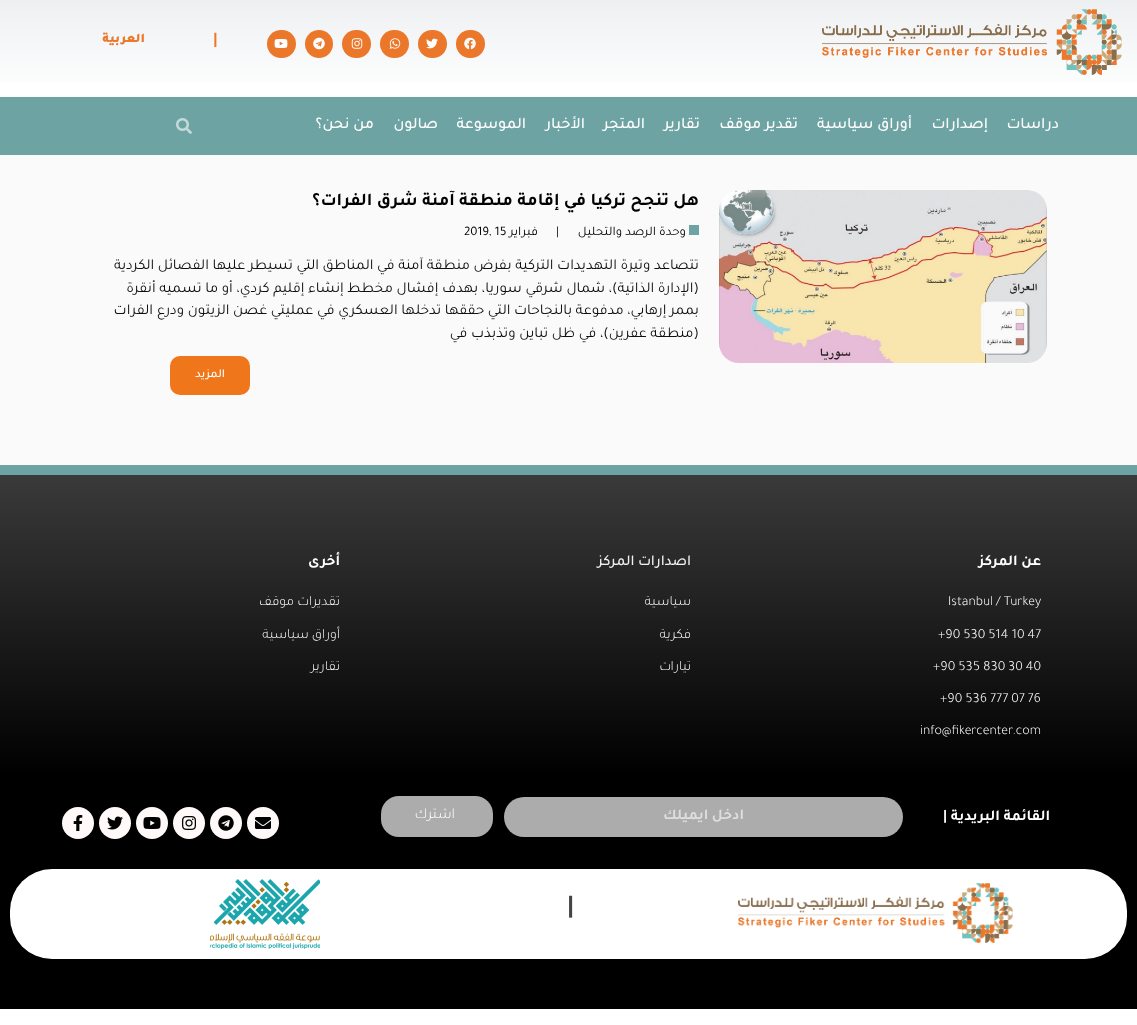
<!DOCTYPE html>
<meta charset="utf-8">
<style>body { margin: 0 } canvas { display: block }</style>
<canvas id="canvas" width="1137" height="1025"></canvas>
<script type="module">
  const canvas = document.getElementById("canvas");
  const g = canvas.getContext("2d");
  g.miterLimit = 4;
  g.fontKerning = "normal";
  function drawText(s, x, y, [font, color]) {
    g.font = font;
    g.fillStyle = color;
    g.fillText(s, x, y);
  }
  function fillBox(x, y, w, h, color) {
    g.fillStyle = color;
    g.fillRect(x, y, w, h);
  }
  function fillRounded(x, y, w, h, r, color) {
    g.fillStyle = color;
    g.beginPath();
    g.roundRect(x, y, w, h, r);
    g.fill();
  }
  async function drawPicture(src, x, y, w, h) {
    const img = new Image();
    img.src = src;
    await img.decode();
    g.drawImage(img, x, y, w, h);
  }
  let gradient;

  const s1 = ["bold 17px Tajawal", "#EB772B"];
  const s2 = ["900 13px Tajawal", "#EB772B"];
  const s3 = ["500 16px Tajawal", "#FFFFFF"];
  const s4 = ["bold 18px Tajawal", "#000000"];
  const s5 = ["13px Tajawal", "#000000"];
  const s6 = ["15px Tajawal", "#110E0E"];
  const s7 = ["500 12px Tajawal", "#FFFFFF"];
  const s8 = ["bold 15px Tajawal", "#FFFFFF"];
  const s9 = ["300 14px Tajawal", "#FFFFFF"];
  const s10 = ["500 15px Tajawal", "#F2F1F1"];
  const s11 = ["bold 15px Tajawal", "#DEDEDE"];
  const s12 = ["300 15px Tajawal", "#FFFFFF"];
  const s13 = ["bold 26px Tajawal", "#444444"];

  fillBox(0, 0, 1137, 1025, "#FFFFFF");
  gradient = g.createLinearGradient(569, -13, 569, 97);
  gradient.addColorStop(0, "#EBEEF0");
  gradient.addColorStop(1, "#FFFFFF");
  g.fillStyle = gradient;
  g.fillRect(0, 0, 1137, 83);
  await drawPicture("pic1.png", 822, 9, 300, 66);
  fillRounded(456, 30, 29, 28, 14, "#EB772B");
  await drawPicture("pic2.png", 464, 37, 12, 13);
  fillRounded(418, 30, 29, 28, 14, "#EB772B");
  await drawPicture("pic3.png", 426, 38, 12, 11);
  fillRounded(380, 30, 29, 28, 14, "#EB772B");
  await drawPicture("pic4.png", 389, 38, 12, 11);
  fillRounded(342, 30, 29, 28, 14, "#EB772B");
  await drawPicture("pic5.png", 351, 38, 12, 11);
  g.beginPath();
  g.arc(319, 44, 14, 0, Math.PI * 2);
  g.fill();
  await drawPicture("pic6.png", 313, 37, 12, 13);
  fillRounded(267, 30, 29, 28, 14, "#EB772B");
  await drawPicture("pic7.png", 274, 39, 14, 9);
  drawText("|", 213, 44, s1);
  g.direction = "rtl";
  drawText("العربية", 145, 42, s2);
  fillBox(0, 97, 1137, 58, "#6EA3A3");
  drawText("دراسات", 1059, 128, s3);
  drawText("إصدارات", 988, 128, s3);
  drawText("أوراق سياسية", 912, 128, s3);
  drawText("تقدير موقف", 798, 128, s3);
  drawText("تقارير", 700, 128, s3);
  drawText("المتجر", 645, 128, s3);
  drawText("الأخبار", 585, 128, s3);
  drawText("الموسوعة", 526, 128, s3);
  drawText("صالون", 438, 128, s3);
  drawText("من نحن؟", 374, 128, s3);
  await drawPicture("pic8.png", 176, 118, 16, 16);
  fillBox(0, 155, 1137, 310, "#FBFAFA");
  await drawPicture("pic9.png", 719, 190, 328, 173);
  drawText("هل تنجح تركيا في إقامة منطقة آمنة شرق الفرات؟", 699, 205, s4);
  fillBox(689, 225, 10, 10, "#6EA3A3");
  drawText("وحدة الرصد والتحليل", 686, 235, s5);
  g.direction = "ltr";
  drawText("|", 556, 235, s5);
  g.direction = "rtl";
  drawText("فبراير", 538, 235, s5);
  g.direction = "ltr";
  drawText("2019, 15", 464, 235, s5);
  g.direction = "rtl";
  drawText("تتصاعد وتيرة التهديدات التركية بفرض منطقة آمنة في المناطق التي تسيطر عليها الفصائل الكردية", 699, 269, s6);
  drawText("(الإدارة الذاتية)، شمال شرقي سوريا، بهدف إفشال مخطط إنشاء إقليم كردي، أو ما تسميه أنقرة", 699, 292, s6);
  drawText("بممر إرهابي، مدفوعة بالنجاحات التي حققها تدخلها العسكري في عمليتي غصن الزيتون ودرع الفرات", 699, 314, s6);
  drawText("(منطقة عفرين)، في ظل تباين وتذبذب في", 699, 337, s6);
  fillRounded(170, 356, 80, 39, 10, "#EF761B");
  drawText("المزيد", 225, 377, s7);
  gradient = g.createLinearGradient(569, 776, 569, 475);
  gradient.addColorStop(0, "#000000");
  gradient.addColorStop(1, "#3A3A3A");
  g.fillStyle = gradient;
  g.fillRect(0, 475, 1137, 301);
  fillBox(0, 465, 1137, 10, "#6EA3A3");
  drawText("عن المركز", 1041, 565, s8);
  g.direction = "ltr";
  drawText("Istanbul / Turkey", 948, 605, s9);
  drawText("+90 530 514 10 47", 938, 638, s9);
  drawText("+90 535 830 30 40", 933, 670, s9);
  drawText("+90 536 777 07 76", 940, 702, s9);
  drawText("info@fikercenter.com", 920, 734, s9);
  g.direction = "rtl";
  drawText("اصدارات المركز", 691, 565, s10);
  drawText("سياسية", 691, 605, s9);
  drawText("فكرية", 691, 638, s9);
  drawText("تيارات", 691, 670, s9);
  drawText("أخرى", 340, 565, s8);
  drawText("تقديرات موقف", 340, 605, s9);
  drawText("أوراق سياسية", 340, 638, s9);
  drawText("تقارير", 340, 670, s9);
  fillBox(0, 776, 1137, 233, "#000000");
  drawText("القائمة البريدية |", 1050, 820, s8);
  fillRounded(504, 797, 399, 40, 20, "#ADACAC");
  drawText("ادخل ايميلك", 744, 819, s11);
  fillRounded(381, 796, 112, 41, 18, "#ADACAC");
  drawText("اشترك", 455, 818, s12);
  g.fillStyle = "#FFF9F9";
  g.beginPath();
  g.arc(263, 823, 16, 0, Math.PI * 2);
  g.fill();
  await drawPicture("pic10.png", 255, 817, 16, 12);
  g.beginPath();
  g.arc(226, 823, 16, 0, Math.PI * 2);
  g.fill();
  await drawPicture("pic11.png", 218, 815, 16, 16);
  g.beginPath();
  g.arc(189, 823, 16, 0, Math.PI * 2);
  g.fill();
  await drawPicture("pic12.png", 182, 816, 14, 14);
  g.beginPath();
  g.arc(152, 823, 16, 0, Math.PI * 2);
  g.fill();
  await drawPicture("pic13.png", 143, 817, 18, 12);
  g.beginPath();
  g.arc(115, 823, 16, 0, Math.PI * 2);
  g.fill();
  await drawPicture("pic14.png", 107, 816, 16, 14);
  g.beginPath();
  g.arc(78, 823, 16, 0, Math.PI * 2);
  g.fill();
  await drawPicture("pic15.png", 73, 815, 10, 16);
  fillRounded(10, 869, 1117, 90, 42, "#FFFFFF");
  await drawPicture("pic16.png", 738, 883, 275, 60);
  g.direction = "ltr";
  drawText("|", 567, 913, s13);
  await drawPicture("pic17.png", 210, 879, 110, 70);
</script>
